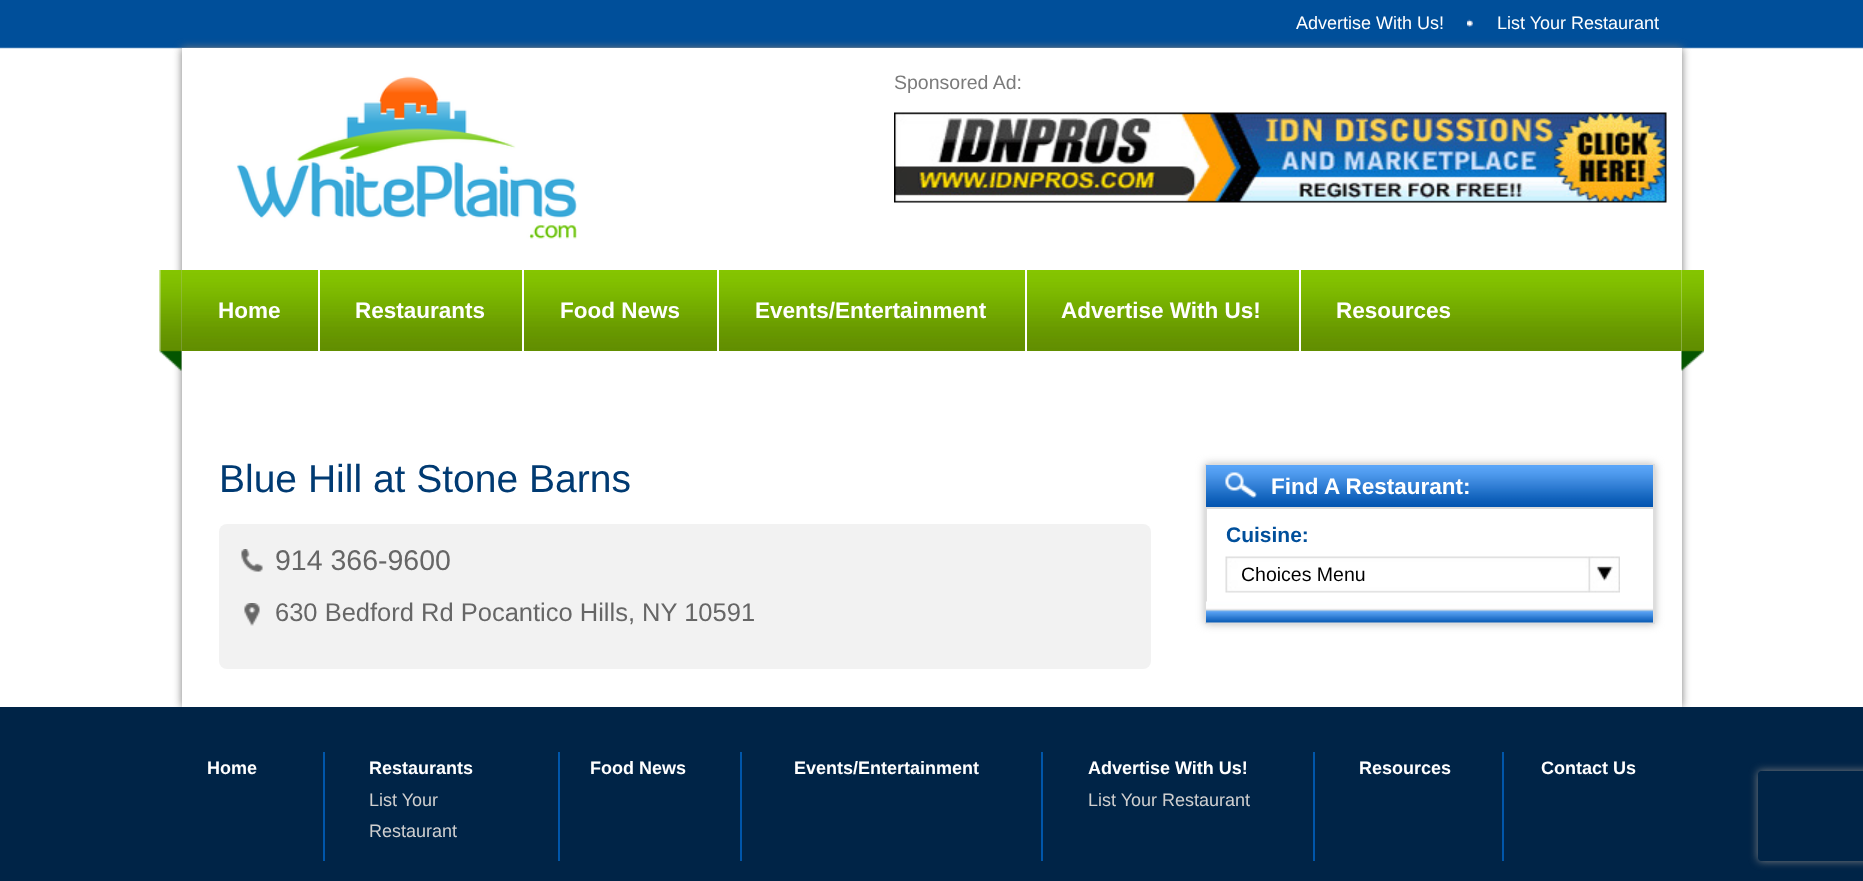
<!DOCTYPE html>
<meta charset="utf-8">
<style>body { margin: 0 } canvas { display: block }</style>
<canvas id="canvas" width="1863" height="881"></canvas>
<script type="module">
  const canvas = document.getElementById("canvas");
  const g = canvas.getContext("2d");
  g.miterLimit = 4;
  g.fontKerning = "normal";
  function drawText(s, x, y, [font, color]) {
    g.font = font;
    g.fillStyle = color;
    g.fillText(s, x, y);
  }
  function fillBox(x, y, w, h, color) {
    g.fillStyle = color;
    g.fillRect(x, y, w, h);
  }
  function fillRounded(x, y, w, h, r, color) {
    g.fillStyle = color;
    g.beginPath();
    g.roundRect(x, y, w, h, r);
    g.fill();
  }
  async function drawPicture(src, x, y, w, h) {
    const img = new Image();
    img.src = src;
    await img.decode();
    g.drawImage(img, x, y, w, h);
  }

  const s1 = ["18px Liberation Sans", "#FFFFFF"];
  const s2 = ["19.5px Liberation Sans", "#7B7B7B"];
  const s3 = ["bold 22.5px Liberation Sans", "#FFFFFF"];
  const s4 = ["39px Liberation Sans", "#003A72"];
  const s5 = ["28.5px Liberation Sans", "#666666"];
  const s6 = ["25.5px Liberation Sans", "#666666"];
  const s7 = ["bold 21px Liberation Sans", "#004F9B"];
  const s8 = ["19.5px Liberation Sans", "#000000"];
  const s9 = ["bold 18px Liberation Sans", "#FFFFFF"];
  const s10 = ["18px Liberation Sans", "#CFCFCF"];

  fillBox(0, 0, 1863, 881, "#FFFFFF");
  await drawPicture("pic1.png", 0, 0, 1863, 707);
  drawText("Advertise With Us!", 1296, 29, s1);
  await drawPicture("pic2.png", 1467, 19, 6, 8);
  drawText("List Your Restaurant", 1497, 29, s1);
  g.fillStyle = "#797979";
  g.filter = "blur(4px)";
  g.beginPath();
  g.rect(182, 48, 1500, 659);
  g.fill();
  g.filter = "none";
  fillBox(182, 48, 1500, 659, "#FFFFFF");
  await drawPicture("pic3.png", 236, 76, 341, 163);
  drawText("Sponsored Ad:", 894, 89, s2);
  await drawPicture("pic4.png", 894, 112, 773, 91);
  await drawPicture("pic5.png", 159, 270, 23, 101);
  await drawPicture("pic6.png", 181, 270, 1501, 81);
  drawText("Home", 218, 318, s3);
  fillBox(318, 270, 2, 81, "#FFFFFF");
  drawText("Restaurants", 355, 318, s3);
  fillBox(522, 270, 2, 81, "#FFFFFF");
  drawText("Food News", 560, 318, s3);
  fillBox(717, 270, 2, 81, "#FFFFFF");
  drawText("Events/Entertainment", 755, 318, s3);
  fillBox(1025, 270, 2, 81, "#FFFFFF");
  drawText("Advertise With Us!", 1061, 318, s3);
  fillBox(1299, 270, 2, 81, "#FFFFFF");
  drawText("Resources", 1336, 318, s3);
  await drawPicture("pic7.png", 1681, 270, 23, 101);
  drawText("Blue Hill at Stone Barns", 219, 492, s4);
  fillRounded(219, 524, 932, 145, 8, "#F2F2F2");
  await drawPicture("pic8.png", 241, 549, 22, 23);
  drawText("914 366-9600", 275, 570, s5);
  await drawPicture("pic9.png", 244, 603, 16, 23);
  drawText("630 Bedford Rd Pocantico Hills, NY 10591", 275, 621, s6);
  g.save();
  g.beginPath();
  g.moveTo(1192, 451);
  g.lineTo(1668, 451);
  g.lineTo(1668, 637);
  g.lineTo(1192, 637);
  g.closePath();
  g.moveTo(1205, 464);
  g.lineTo(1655, 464);
  g.lineTo(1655, 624);
  g.lineTo(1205, 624);
  g.closePath();
  g.clip("evenodd");
  g.fillStyle = "#B8B8B8";
  g.filter = "blur(4px)";
  g.beginPath();
  g.rect(1205, 464, 450, 160);
  g.fill();
  g.filter = "none";
  g.restore();
  g.strokeStyle = "#DDDDDD";
  g.lineWidth = 2;
  g.strokeRect(1206, 465, 448, 158);
  await drawPicture("pic10.png", 1206, 465, 447, 42);
  fillBox(1206, 507, 447, 2, "#DDDDDD");
  await drawPicture("pic11.png", 1225, 472, 32, 26);
  drawText("Find A Restaurant:", 1271, 494, s3);
  await drawPicture("pic12.png", 1206, 601, 447, 22);
  drawText("Cuisine:", 1226, 542, s7);
  await drawPicture("pic13.png", 1225, 556, 395, 37);
  drawText("Choices Menu", 1241, 581, s8);
  fillBox(0, 707, 1863, 174, "#002447");
  drawText("Home", 207, 774, s9);
  fillBox(323, 752, 2, 109, "#0056AA");
  drawText("Restaurants", 369, 774, s9);
  drawText("List Your", 369, 806, s10);
  drawText("Restaurant", 369, 837, s10);
  fillBox(558, 752, 2, 109, "#0056AA");
  drawText("Food News", 590, 774, s9);
  fillBox(740, 752, 2, 109, "#0056AA");
  drawText("Events/Entertainment", 794, 774, s9);
  fillBox(1041, 752, 2, 109, "#0056AA");
  drawText("Advertise With Us!", 1088, 774, s9);
  drawText("List Your Restaurant", 1088, 806, s10);
  fillBox(1313, 752, 2, 109, "#0056AA");
  drawText("Resources", 1359, 774, s9);
  fillBox(1502, 752, 2, 109, "#0056AA");
  drawText("Contact Us", 1541, 774, s9);
  g.save();
  g.beginPath();
  g.moveTo(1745, 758);
  g.lineTo(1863, 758);
  g.lineTo(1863, 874);
  g.lineTo(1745, 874);
  g.closePath();
  g.moveTo(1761, 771);
  g.lineTo(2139, 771);
  g.bezierCurveTo(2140.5, 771, 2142, 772.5, 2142, 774);
  g.lineTo(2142, 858);
  g.bezierCurveTo(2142, 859.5, 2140.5, 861, 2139, 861);
  g.lineTo(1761, 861);
  g.bezierCurveTo(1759.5, 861, 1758, 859.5, 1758, 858);
  g.lineTo(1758, 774);
  g.bezierCurveTo(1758, 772.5, 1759.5, 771, 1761, 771);
  g.closePath();
  g.clip("evenodd");
  g.fillStyle = "#808080";
  g.filter = "blur(4px)";
  g.beginPath();
  g.roundRect(1758, 771, 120, 90, 3);
  g.fill();
  g.filter = "none";
  g.restore();
</script>
